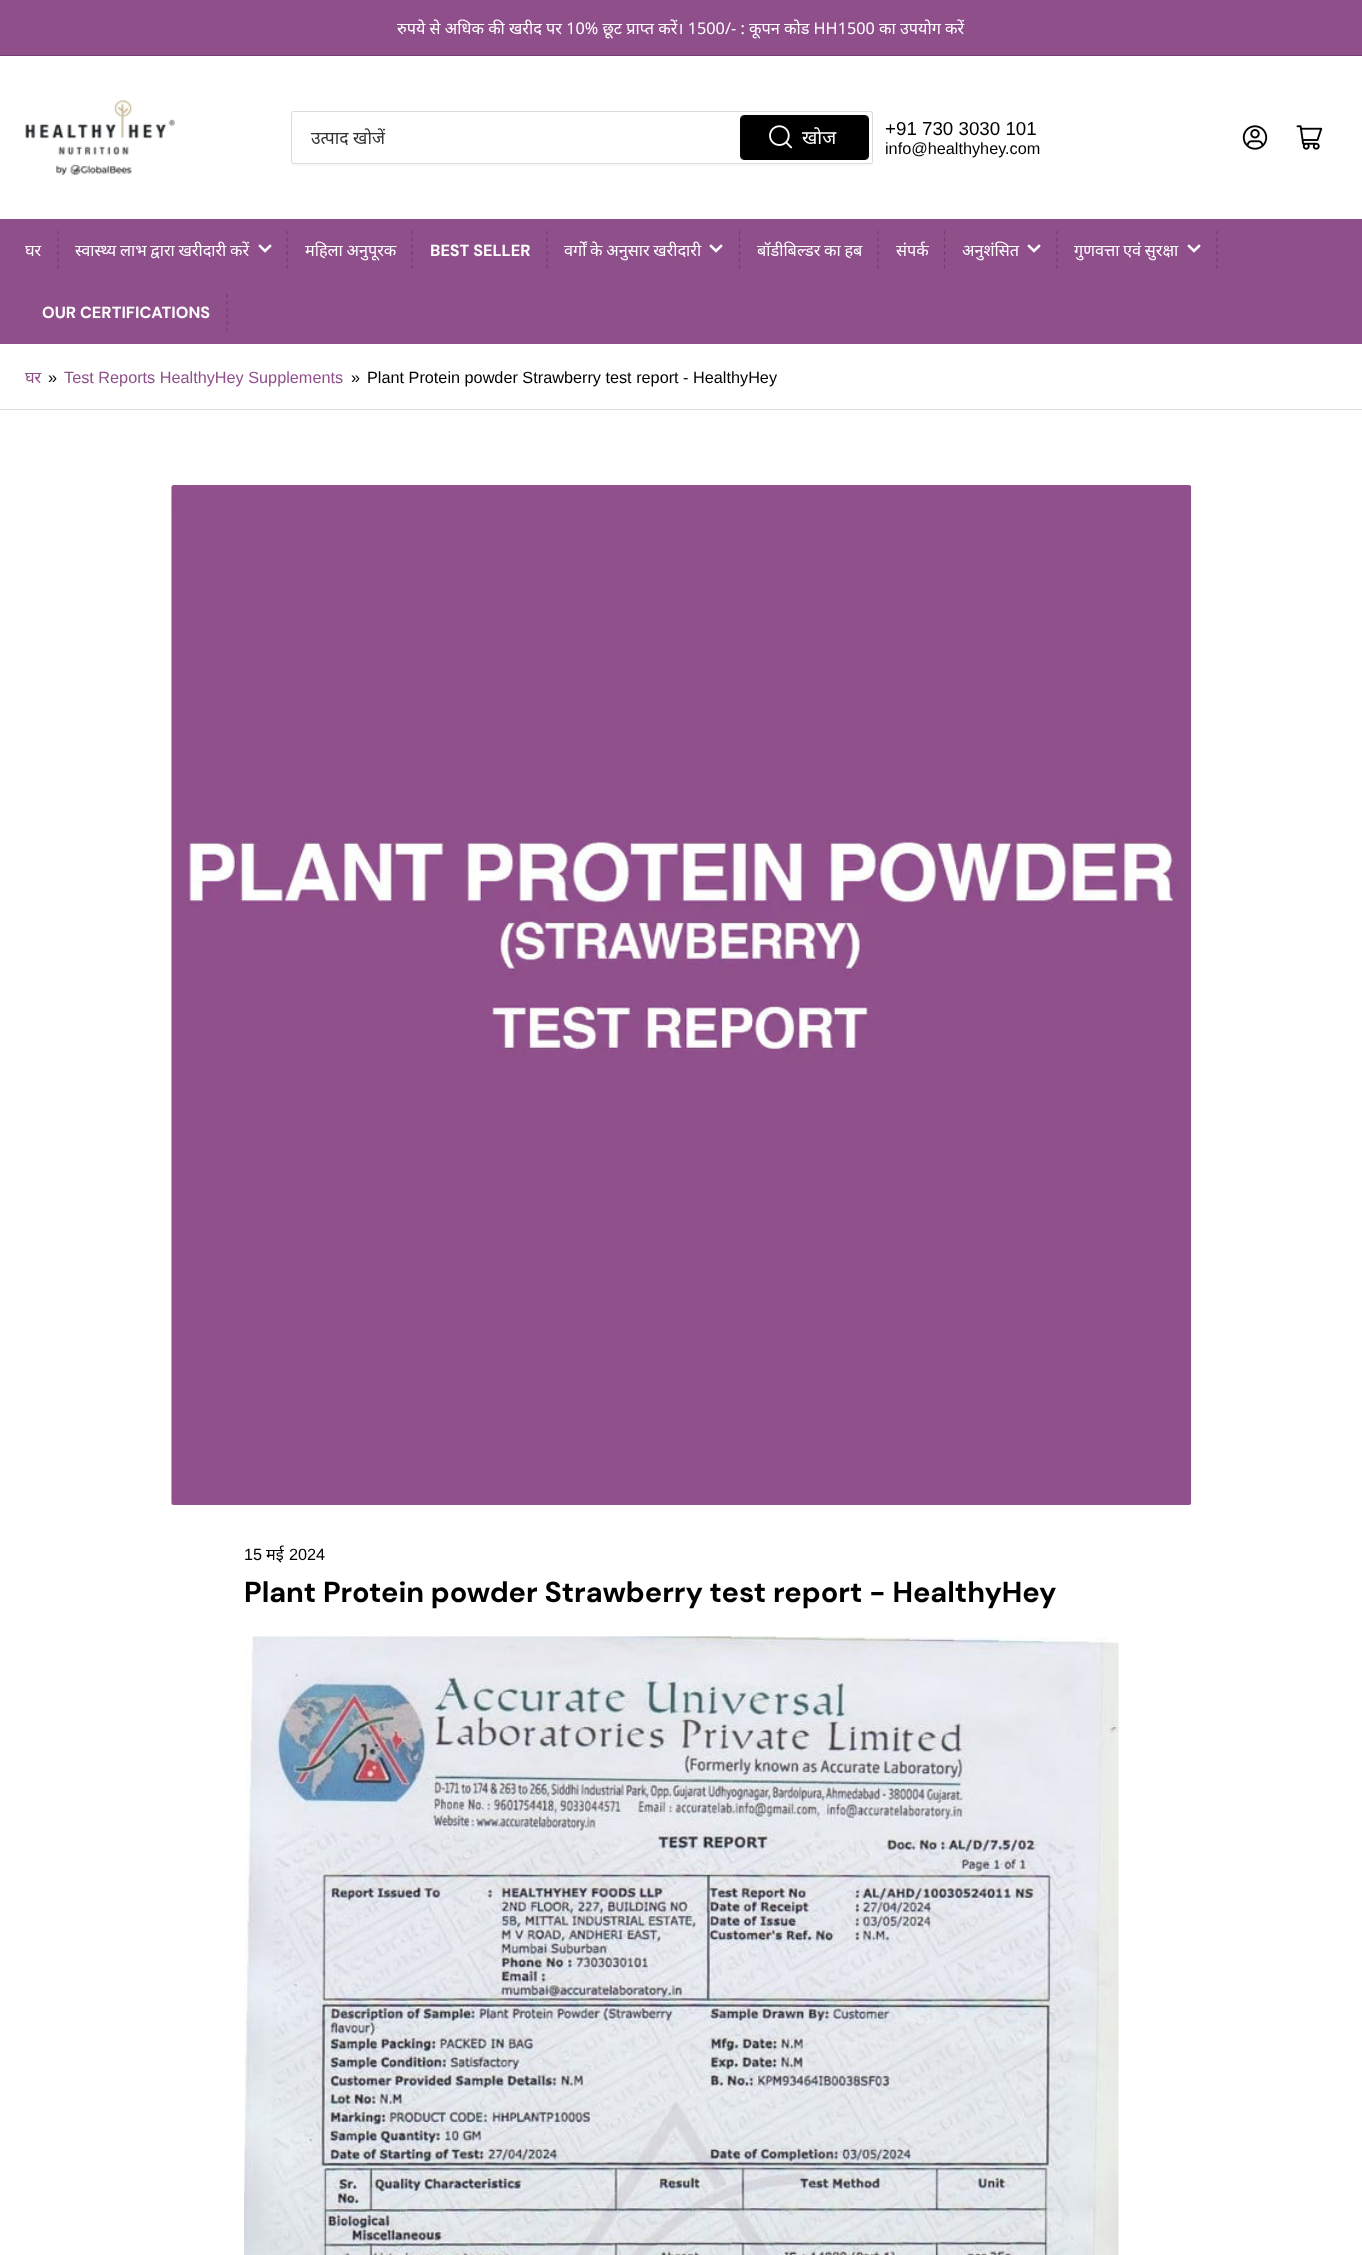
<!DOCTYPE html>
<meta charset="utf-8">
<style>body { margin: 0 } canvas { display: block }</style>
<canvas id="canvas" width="1362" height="2255"></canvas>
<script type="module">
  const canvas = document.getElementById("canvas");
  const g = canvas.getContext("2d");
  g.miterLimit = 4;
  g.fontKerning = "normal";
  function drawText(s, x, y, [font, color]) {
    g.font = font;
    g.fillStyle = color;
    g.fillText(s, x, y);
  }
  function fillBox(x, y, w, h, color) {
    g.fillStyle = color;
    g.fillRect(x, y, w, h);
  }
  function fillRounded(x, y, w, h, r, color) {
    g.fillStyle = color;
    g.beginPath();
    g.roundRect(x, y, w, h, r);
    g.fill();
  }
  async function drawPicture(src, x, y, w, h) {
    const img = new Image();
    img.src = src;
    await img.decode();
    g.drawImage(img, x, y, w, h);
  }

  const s1 = ["16.25px Noto Sans", "#FFFFFF"];
  const s2 = ["17.5px Noto Sans", "#333333"];
  const s3 = ["18.75px Noto Sans", "#FFFFFF"];
  const s4 = ["18.75px Liberation Sans", "#000000"];
  const s5 = ["16.25px Liberation Sans", "#000000"];
  const s6 = ["bold 16.25px 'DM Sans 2'", "#FFFFFF"];
  const s7 = ["16.25px Noto Sans", "#8F4F8B"];
  const s8 = ["16.25px Liberation Sans", "#8F4F8B"];
  const s9 = ["16.25px Noto Sans", "#000000"];
  const s10 = ["bold 28.9px DM Sans", "#000000"];

  fillBox(0, 0, 1362, 2255, "#FFFFFF");
  fillBox(0, 0, 1362, 55, "#8F4F8B");
  fillBox(0, 55, 1362, 1, "#723F6F");
  drawText("रुपये से अधिक की खरीद पर 10% छूट प्राप्त करें। 1500/- : कूपन कोड HH1500 का उपयोग करें", 397, 34, s1);
  await drawPicture("pic1.png", 25, 100, 150, 75);
  g.fillStyle = "#F8F8F8";
  g.beginPath();
  g.moveTo(291, 115);
  g.lineTo(291, 164);
  g.bezierCurveTo(291, 165, 292, 166, 294, 166);
  g.lineTo(870, 166);
  g.bezierCurveTo(872, 166, 873, 165, 873, 164);
  g.lineTo(873, 116);
  g.lineTo(872, 115);
  g.lineTo(872, 161);
  g.bezierCurveTo(872, 163, 871, 164, 870, 164);
  g.lineTo(294, 164);
  g.bezierCurveTo(292, 164, 291, 163, 291, 161);
  g.closePath();
  g.fill();
  g.fillStyle = "#FFFFFF";
  g.beginPath();
  g.roundRect(291.5, 111.5, 581, 52, 2);
  g.fill();
  g.strokeStyle = "#DADADA";
  g.stroke();
  drawText("उत्पाद खोजें", 311, 144, s2);
  g.beginPath();
  g.roundRect(740.5, 115.5, 128, 44, 3.5);
  g.strokeStyle = "#000000";
  g.stroke();
  fillRounded(741, 116, 127, 43, 2.5, "#000000");
  await drawPicture("pic2.png", 769, 125, 24, 24);
  drawText("खोज", 802, 144, s3);
  drawText("+91 730 3030 101", 885, 135, s4);
  drawText("info@healthyhey.com", 885, 154, s5);
  await drawPicture("pic3.png", 1242, 125, 26, 25);
  await drawPicture("pic4.png", 1296, 125, 27, 25);
  fillBox(0, 219, 1362, 125, "#8F4F8B");
  drawText("घर", 25, 256, s1);
  g.beginPath();
  g.moveTo(58, 231);
  g.lineTo(58, 269);
  g.strokeStyle = "#723F6F";
  g.lineWidth = 1.2;
  g.setLineDash([3.75, 3]);
  g.stroke();
  g.wordSpacing = "-0.5px";
  drawText("स्वास्थ्य लाभ द्वारा खरीदारी करें", 75, 256, s1);
  g.beginPath();
  g.moveTo(270, 246);
  g.lineTo(265, 251);
  g.lineTo(260, 246);
  g.strokeStyle = "#FFFFFF";
  g.lineWidth = 2.5;
  g.lineCap = "square";
  g.setLineDash([]);
  g.stroke();
  g.beginPath();
  g.moveTo(287, 231);
  g.lineTo(287, 269);
  g.strokeStyle = "#723F6F";
  g.lineWidth = 1.2;
  g.lineCap = "butt";
  g.setLineDash([3.75, 3]);
  g.stroke();
  drawText("महिला अनुपूरक", 305, 256, s1);
  g.beginPath();
  g.moveTo(412, 231);
  g.lineTo(412, 269);
  g.stroke();
  g.wordSpacing = "0px";
  drawText("BEST SELLER", 430, 256, s6);
  g.beginPath();
  g.moveTo(547, 231);
  g.lineTo(547, 269);
  g.stroke();
  g.wordSpacing = "-0.5px";
  drawText("वर्गों के अनुसार खरीदारी", 564, 256, s1);
  g.beginPath();
  g.moveTo(721, 246);
  g.lineTo(716, 251);
  g.lineTo(711, 246);
  g.strokeStyle = "#FFFFFF";
  g.lineWidth = 2.5;
  g.lineCap = "square";
  g.setLineDash([]);
  g.stroke();
  g.beginPath();
  g.moveTo(739.5, 231);
  g.lineTo(739.5, 269);
  g.strokeStyle = "#723F6F";
  g.lineWidth = 1.2;
  g.lineCap = "butt";
  g.setLineDash([3.75, 3]);
  g.stroke();
  drawText("बॉडीबिल्डर का हब", 757, 256, s1);
  g.beginPath();
  g.moveTo(878, 231);
  g.lineTo(878, 269);
  g.stroke();
  g.wordSpacing = "0px";
  drawText("संपर्क", 896, 256, s1);
  g.beginPath();
  g.moveTo(944.5, 231);
  g.lineTo(944.5, 269);
  g.stroke();
  drawText("अनुशंसित", 962, 256, s1);
  g.beginPath();
  g.moveTo(1039, 246);
  g.lineTo(1034, 251);
  g.lineTo(1029, 246);
  g.strokeStyle = "#FFFFFF";
  g.lineWidth = 2.5;
  g.lineCap = "square";
  g.setLineDash([]);
  g.stroke();
  g.beginPath();
  g.moveTo(1057, 231);
  g.lineTo(1057, 269);
  g.strokeStyle = "#723F6F";
  g.lineWidth = 1.2;
  g.lineCap = "butt";
  g.setLineDash([3.75, 3]);
  g.stroke();
  g.wordSpacing = "-0.5px";
  drawText("गुणवत्ता एवं सुरक्षा", 1074, 256, s1);
  g.beginPath();
  g.moveTo(1199, 246);
  g.lineTo(1194, 251);
  g.lineTo(1189, 246);
  g.strokeStyle = "#FFFFFF";
  g.lineWidth = 2.5;
  g.lineCap = "square";
  g.setLineDash([]);
  g.stroke();
  g.beginPath();
  g.moveTo(1217, 231);
  g.lineTo(1217, 269);
  g.strokeStyle = "#723F6F";
  g.lineWidth = 1.2;
  g.lineCap = "butt";
  g.setLineDash([3.75, 3]);
  g.stroke();
  g.wordSpacing = "0px";
  drawText("OUR CERTIFICATIONS", 42, 318, s6);
  g.beginPath();
  g.moveTo(227, 294);
  g.lineTo(227, 331);
  g.stroke();
  fillBox(0, 409, 1362, 1, "#DADADA");
  drawText("घर", 25, 383, s7);
  drawText("»", 48, 383, s5);
  drawText("Test Reports HealthyHey Supplements", 64, 383, s8);
  drawText("»", 351, 383, s5);
  drawText("Plant Protein powder Strawberry test report - HealthyHey", 367, 383, s5);
  await drawPicture("pic5.png", 171, 485, 1021, 1020);
  drawText("15", 244, 1560, s5);
  drawText("मई", 266, 1560, s9);
  drawText("2024", 289, 1560, s5);
  drawText("Plant Protein powder Strawberry test report - HealthyHey", 244, 1602, s10);
  await drawPicture("pic6.png", 244, 1636, 875, 619);
</script>
